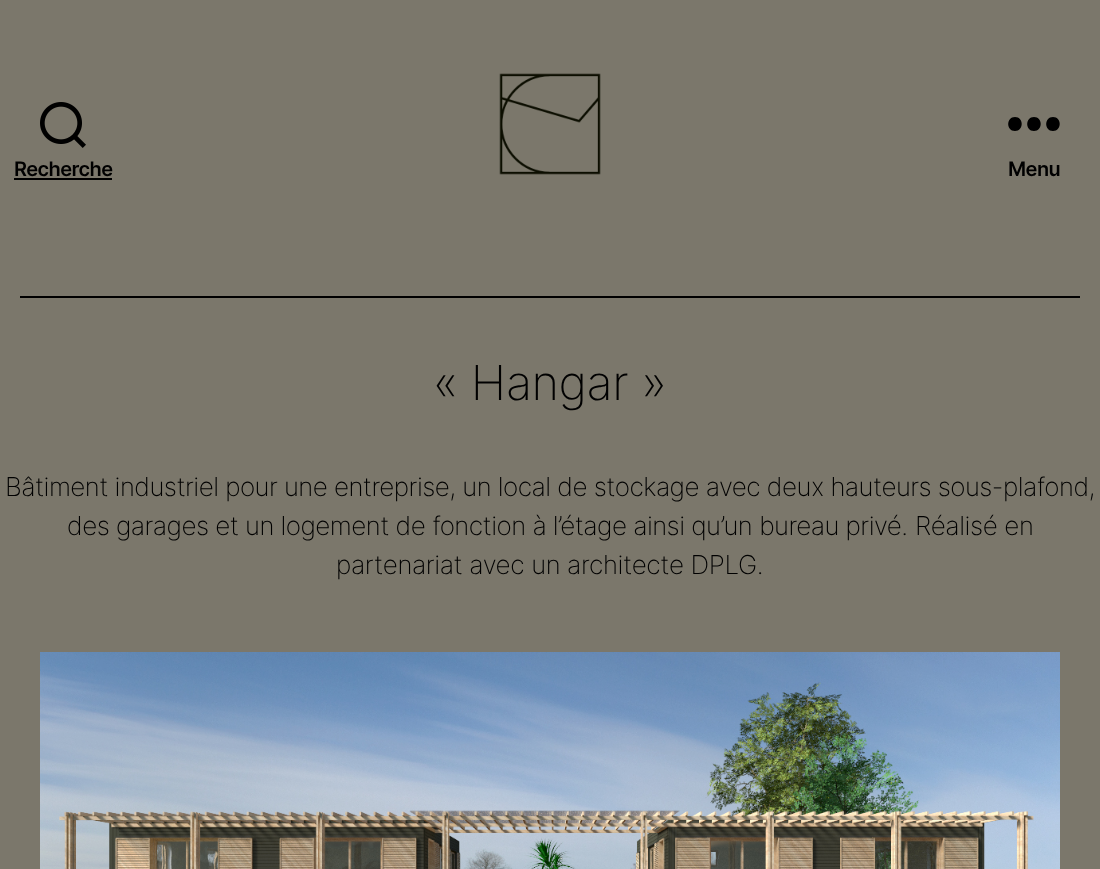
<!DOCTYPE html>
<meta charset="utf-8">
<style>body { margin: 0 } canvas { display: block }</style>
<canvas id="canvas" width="1100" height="869"></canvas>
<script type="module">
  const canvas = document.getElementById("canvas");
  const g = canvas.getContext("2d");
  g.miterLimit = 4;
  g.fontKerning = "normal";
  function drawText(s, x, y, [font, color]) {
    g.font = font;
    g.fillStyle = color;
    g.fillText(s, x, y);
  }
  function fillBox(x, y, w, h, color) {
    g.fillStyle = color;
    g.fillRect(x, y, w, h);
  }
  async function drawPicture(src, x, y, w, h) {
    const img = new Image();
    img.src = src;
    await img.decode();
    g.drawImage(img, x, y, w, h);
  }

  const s1 = ["600 20px Inter", "#000000"];
  const s2 = ["200 48px Inter", "#000000"];
  const s3 = ["200 26px Inter", "#000000"];

  fillBox(0, 0, 1100, 869, "#7B776B");
  await drawPicture("pic1.png", 40, 102, 46, 46);
  g.letterSpacing = "-0.55px";
  drawText("Recherche", 14, 176, s1);
  fillBox(14, 178, 98, 2, "#000000");
  await drawPicture("pic2.png", 499, 73, 102, 102);
  g.beginPath();
  g.moveTo(1015, 131);
  g.bezierCurveTo(1006, 131, 1006, 117, 1015, 117);
  g.bezierCurveTo(1024, 117, 1024, 131, 1015, 131);
  g.closePath();
  g.moveTo(1034, 131);
  g.bezierCurveTo(1025, 131, 1025, 117, 1034, 117);
  g.bezierCurveTo(1043, 117, 1043, 131, 1034, 131);
  g.closePath();
  g.moveTo(1053, 131);
  g.bezierCurveTo(1044, 131, 1044, 117, 1053, 117);
  g.bezierCurveTo(1062, 117, 1062, 131, 1053, 131);
  g.closePath();
  g.fill("evenodd");
  drawText("Menu", 1008, 176, s1);
  fillBox(20, 296, 1060, 2, "#000000");
  drawText("« Hangar »", 433, 400, s2);
  drawText("Bâtiment industriel pour une entreprise, un local de stockage avec deux hauteurs sous-plafond,", 5, 496, s3);
  drawText("des garages et un logement de fonction à l’étage ainsi qu’un bureau privé.", 67, 535, s3);
  g.letterSpacing = "-0.4px";
  drawText("Réalisé en", 915, 535, s3);
  drawText("partenariat avec un architecte DPLG.", 336, 574, s3);
  await drawPicture("pic3.png", 40, 652, 1020, 217);
</script>
